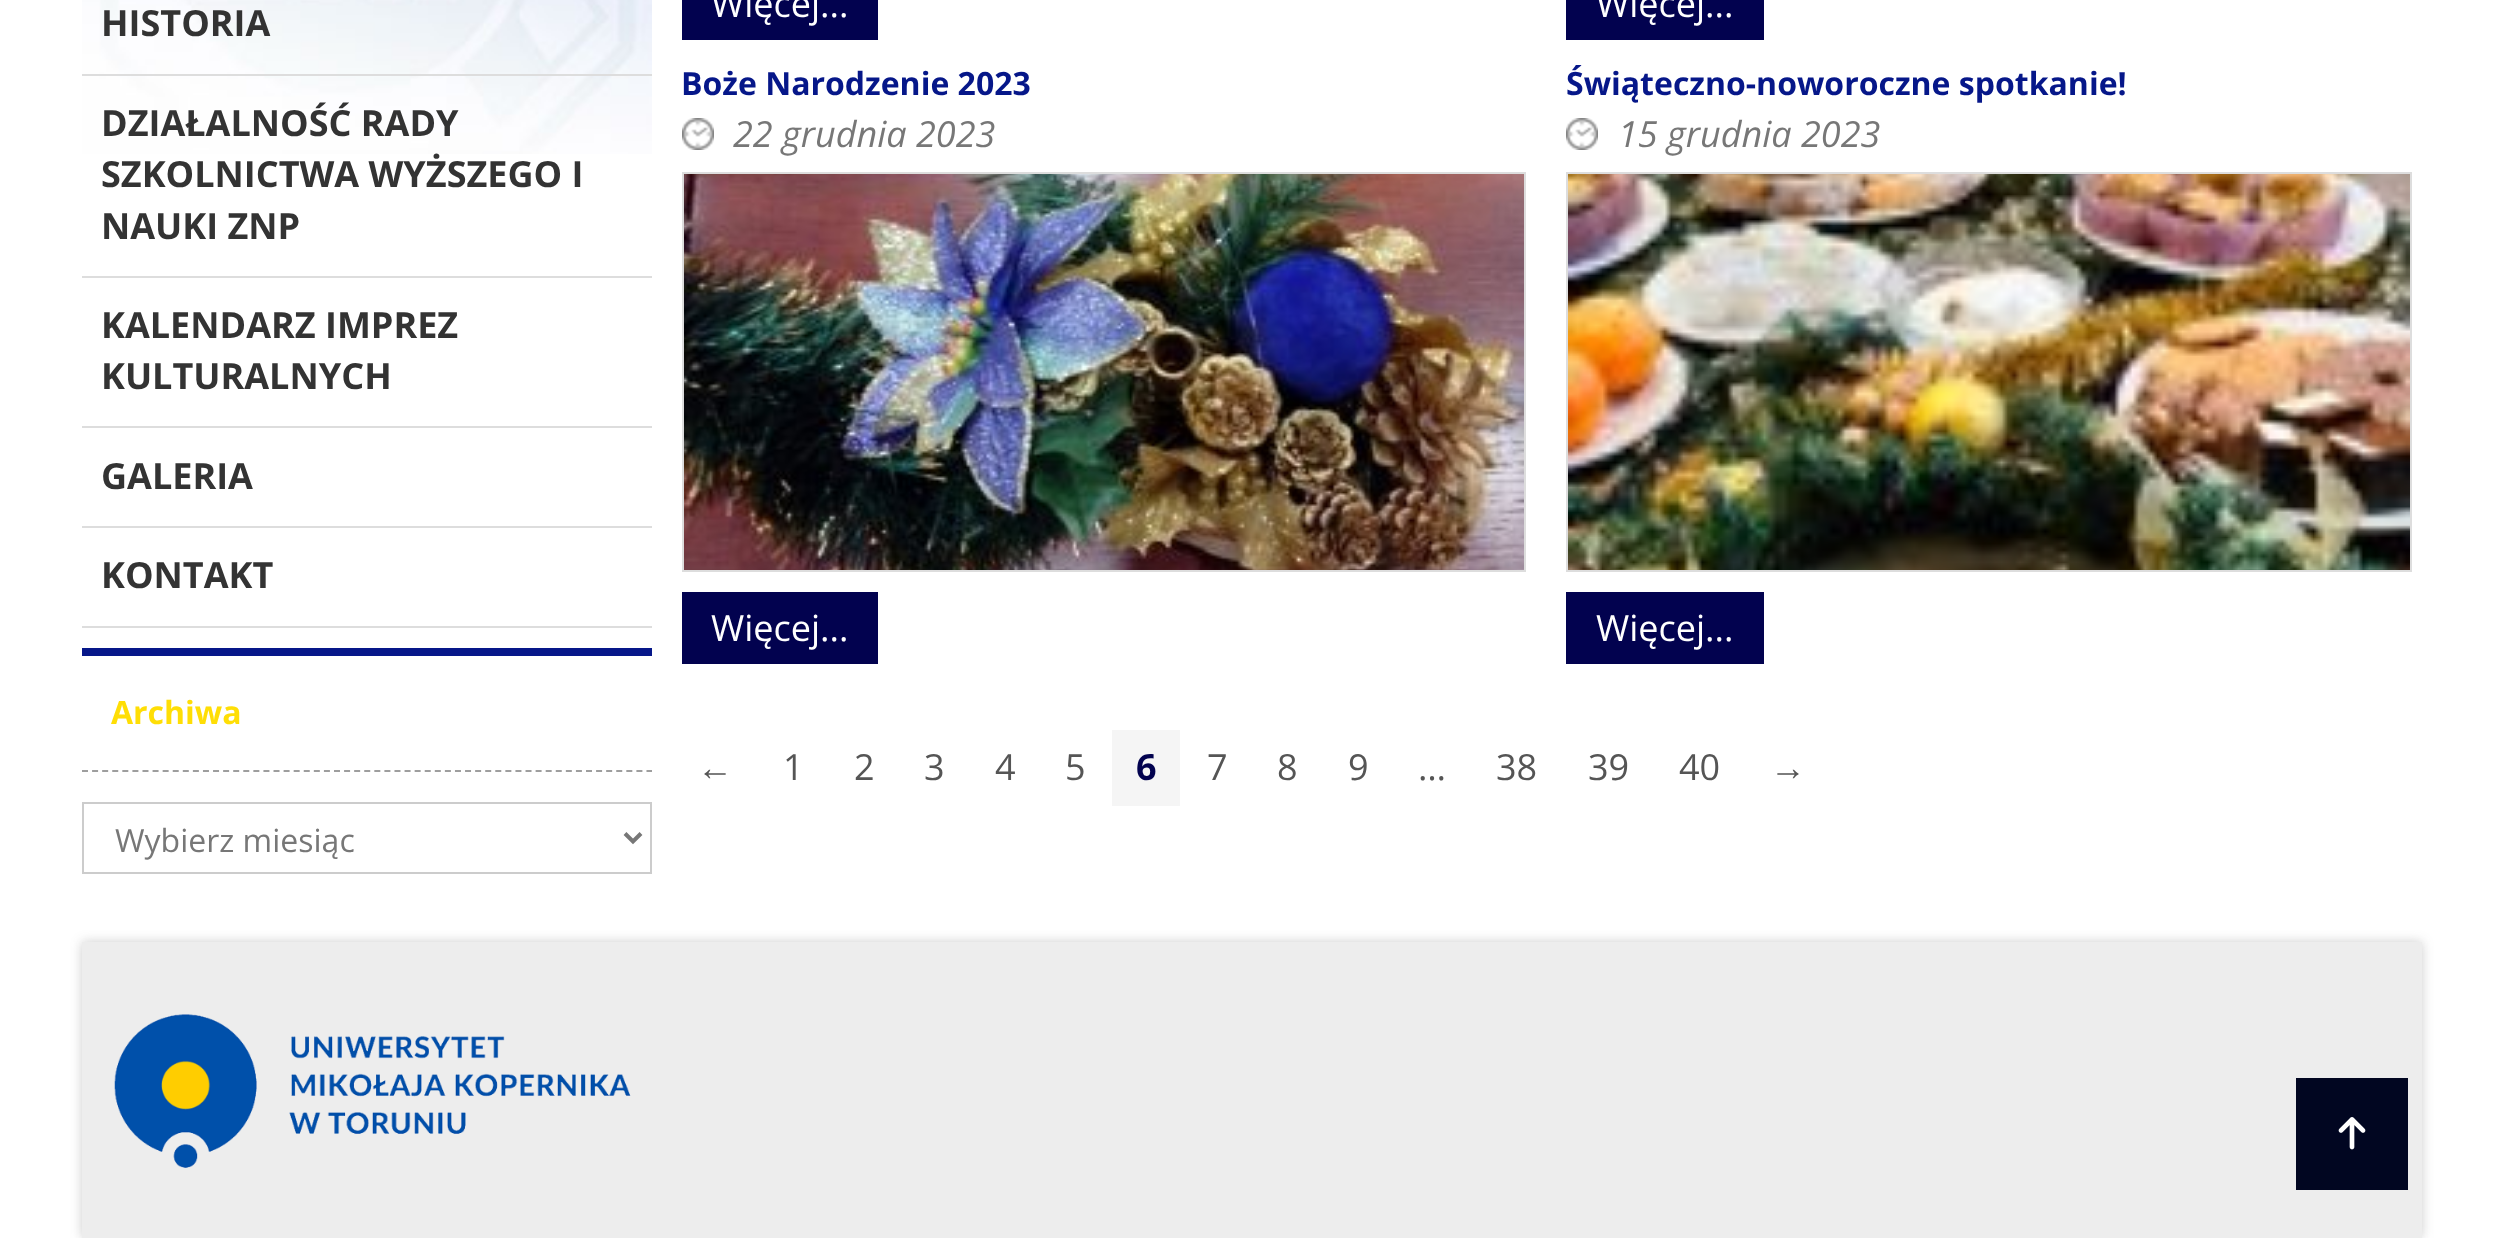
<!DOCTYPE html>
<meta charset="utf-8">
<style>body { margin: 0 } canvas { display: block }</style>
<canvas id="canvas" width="2502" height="1238"></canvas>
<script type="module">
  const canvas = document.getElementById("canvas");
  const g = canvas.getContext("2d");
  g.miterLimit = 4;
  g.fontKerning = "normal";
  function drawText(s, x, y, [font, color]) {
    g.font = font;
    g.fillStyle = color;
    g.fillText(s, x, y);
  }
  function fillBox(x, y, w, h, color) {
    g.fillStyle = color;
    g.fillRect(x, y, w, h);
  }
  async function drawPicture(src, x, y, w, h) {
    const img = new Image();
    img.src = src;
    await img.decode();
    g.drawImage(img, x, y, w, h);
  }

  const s1 = ["bold 36px Open Sans", "#333333"];
  const s2 = ["bold 32px Open Sans", "#FFDE05"];
  const s3 = ["32px Open Sans", "#777777"];
  const s4 = ["36px Open Sans", "#FFFFFF"];
  const s5 = ["bold 32px Open Sans", "#061789"];
  const s6 = ["italic 36px Open Sans", "#777777"];
  const s7 = ["36px Liberation Serif", "#555555"];
  const s8 = ["36px Open Sans", "#555555"];
  const s9 = ["bold 36px Open Sans", "#02024F"];

  fillBox(0, 0, 2502, 1238, "#FFFFFF");
  await drawPicture("pic1.png", 82, 0, 570, 154);
  fillBox(82, 74, 570, 2, "#DDDDDD");
  drawText("HISTORIA", 101, 36, s1);
  fillBox(82, 276, 570, 2, "#DDDDDD");
  drawText("DZIAŁALNOŚĆ RADY", 101, 136, s1);
  drawText("SZKOLNICTWA WYŻSZEGO I", 101, 187, s1);
  drawText("NAUKI ZNP", 101, 239, s1);
  fillBox(82, 426, 570, 2, "#DDDDDD");
  drawText("KALENDARZ IMPREZ", 101, 338, s1);
  drawText("KULTURALNYCH", 101, 389, s1);
  fillBox(82, 526, 570, 2, "#DDDDDD");
  drawText("GALERIA", 101, 489, s1);
  fillBox(82, 626, 570, 2, "#DDDDDD");
  drawText("KONTAKT", 101, 588, s1);
  fillBox(82, 648, 570, 8, "#061789");
  g.beginPath();
  g.moveTo(82, 771);
  g.lineTo(652, 771);
  g.strokeStyle = "#9E9E9E";
  g.lineWidth = 2;
  g.setLineDash([6, 4.08]);
  g.stroke();
  drawText("Archiwa", 111, 724, s2);
  g.strokeStyle = "#CCCCCC";
  g.setLineDash([]);
  g.strokeRect(83, 803, 568, 70);
  g.beginPath();
  g.moveTo(625, 833.5);
  g.lineTo(633, 841.5);
  g.lineTo(641, 833.5);
  g.strokeStyle = "#777777";
  g.lineWidth = 4;
  g.stroke();
  drawText("Wybierz miesiąc", 115, 852, s3);
  fillBox(682, 0, 196, 40, "#02024F");
  drawText("Więcej...", 711, 17, s4);
  fillBox(1566, 0, 198, 40, "#02024F");
  drawText("Więcej...", 1596, 17, s4);
  drawText("Boże Narodzenie 2023", 681, 95, s5);
  await drawPicture("pic2.png", 682, 118, 32, 32);
  drawText("22 grudnia 2023", 733, 147, s6);
  await drawPicture("pic3.png", 684, 174, 840, 396);
  g.strokeStyle = "#DDDDDD";
  g.lineWidth = 2;
  g.strokeRect(683, 173, 842, 398);
  fillBox(682, 592, 196, 72, "#02024F");
  drawText("Więcej...", 711, 641, s4);
  drawText("Świąteczno-noworoczne spotkanie!", 1566, 95, s5);
  await drawPicture("pic2.png", 1566, 118, 32, 32);
  drawText("15 grudnia 2023", 1618, 147, s6);
  await drawPicture("pic4.png", 1568, 174, 842, 396);
  g.strokeRect(1567, 173, 844, 398);
  fillBox(1566, 592, 198, 72, "#02024F");
  drawText("Więcej...", 1596, 641, s4);
  drawText("←", 697, 780, s7);
  drawText("1", 783, 780, s8);
  drawText("2", 854, 780, s8);
  drawText("3", 924, 780, s8);
  drawText("4", 995, 780, s8);
  drawText("5", 1065, 780, s8);
  fillBox(1112, 730, 68, 76, "#F5F5F5");
  drawText("6", 1136, 780, s9);
  drawText("7", 1207, 780, s8);
  drawText("8", 1277, 780, s8);
  drawText("9", 1348, 780, s8);
  drawText("…", 1418, 780, s8);
  drawText("38", 1496, 780, s8);
  drawText("39", 1588, 780, s8);
  drawText("40", 1679, 780, s8);
  drawText("→", 1770, 780, s7);
  g.fillStyle = "rgba(51, 51, 51, 0.25)";
  g.filter = "blur(6px)";
  g.beginPath();
  g.rect(82, 942, 2340, 296);
  g.fill();
  g.filter = "none";
  fillBox(82, 942, 2340, 296, "#EDEDED");
  await drawPicture("pic5.png", 114, 1014, 517, 154);
  fillBox(2296, 1078, 112, 112, "#010621");
  await drawPicture("pic6.png", 2338, 1117, 28, 33);
</script>
